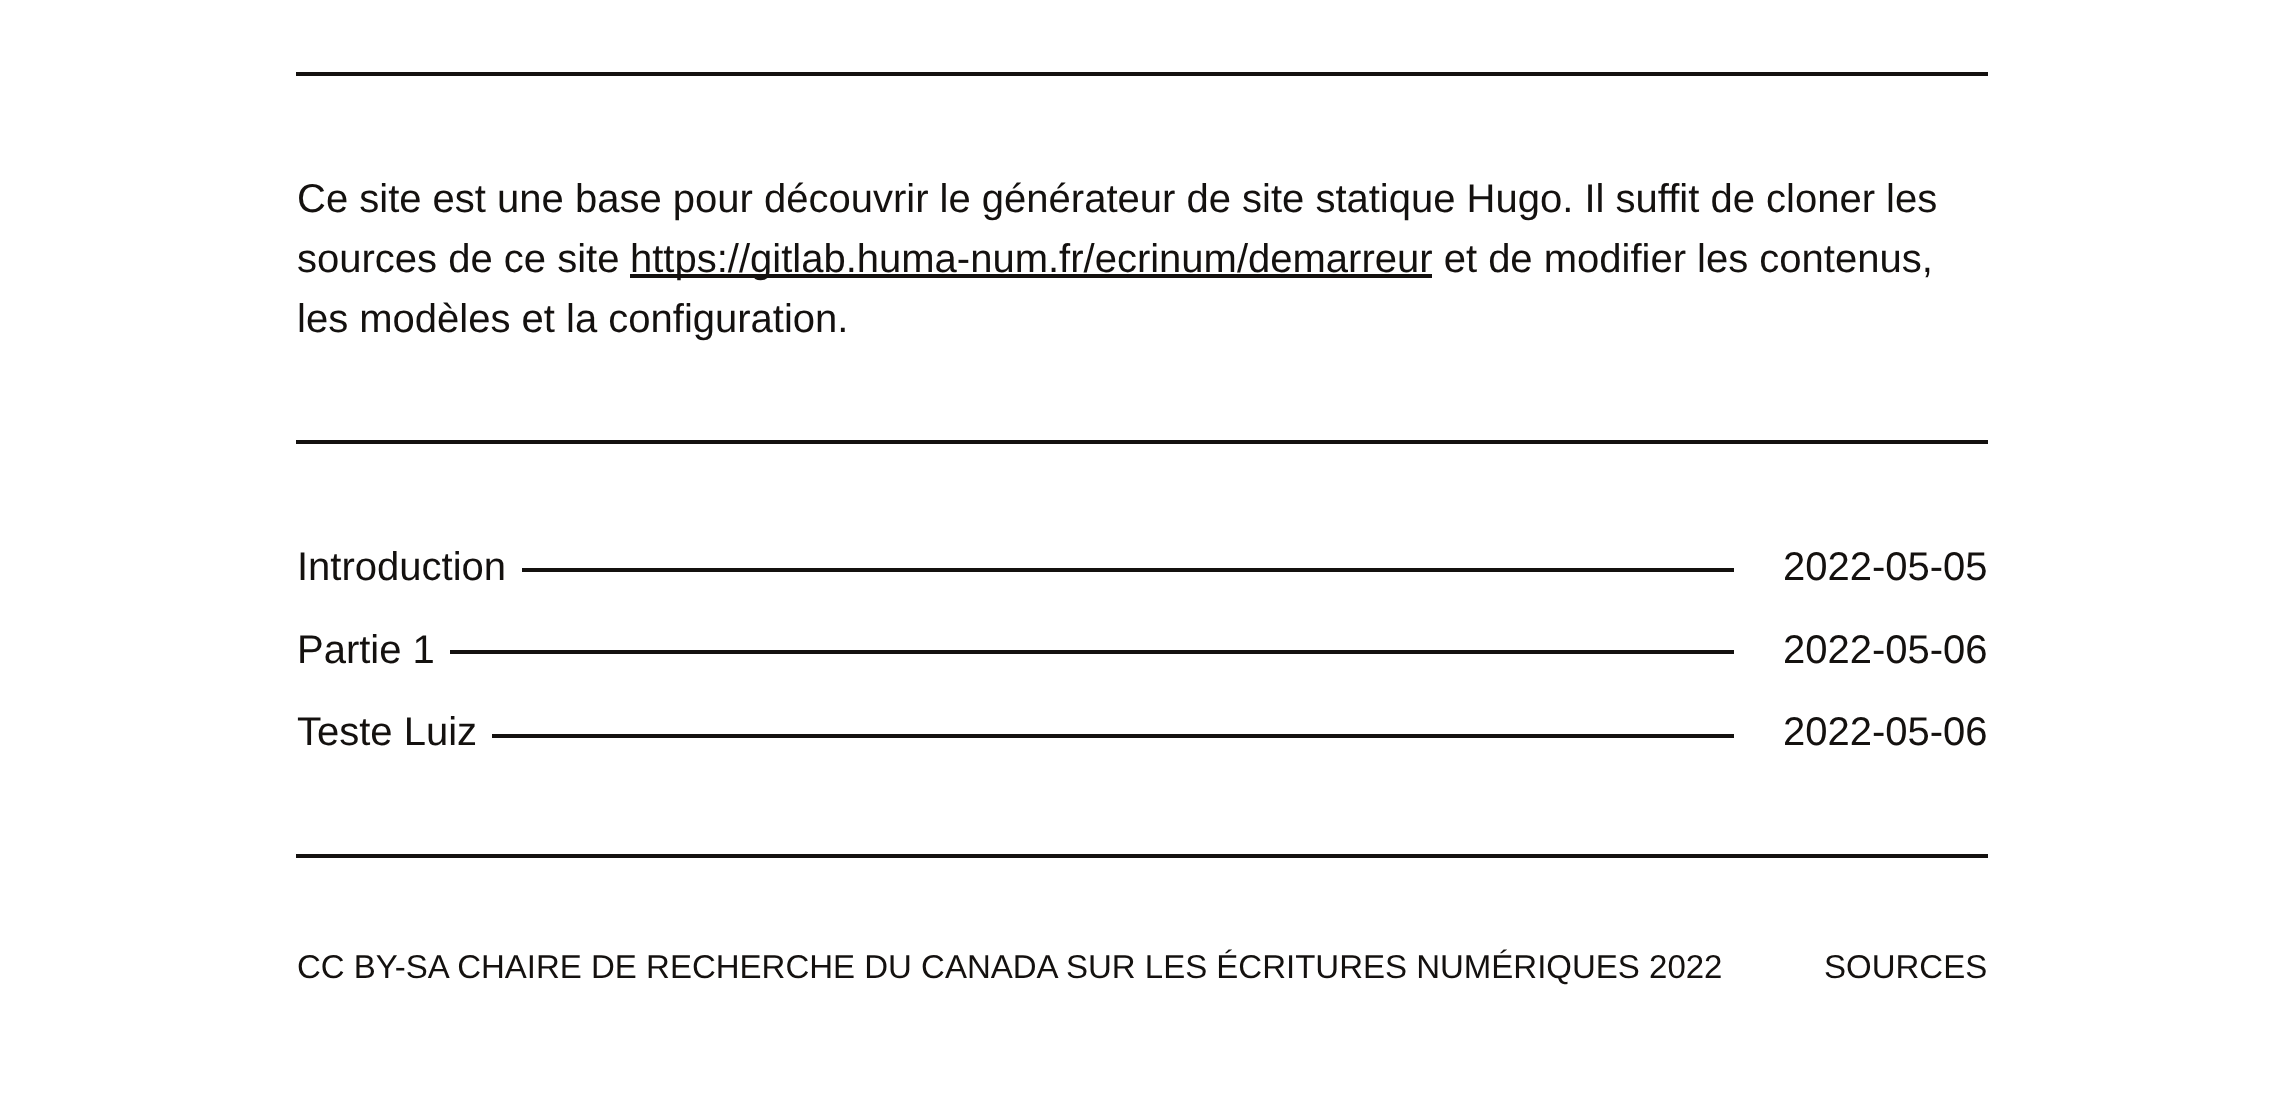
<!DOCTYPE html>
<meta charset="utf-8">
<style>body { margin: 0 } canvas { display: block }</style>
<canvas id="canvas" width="2283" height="1118"></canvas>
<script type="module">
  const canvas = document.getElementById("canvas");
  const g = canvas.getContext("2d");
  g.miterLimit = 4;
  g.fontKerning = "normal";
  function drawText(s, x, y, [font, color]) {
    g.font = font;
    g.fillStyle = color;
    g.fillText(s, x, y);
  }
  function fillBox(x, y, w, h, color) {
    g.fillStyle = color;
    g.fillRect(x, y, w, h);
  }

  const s1 = ["40px Liberation Sans", "#14110F"];
  const s2 = ["33px Liberation Sans", "#14110F"];

  fillBox(0, 0, 2283, 1118, "#FFFFFF");
  fillBox(296, 72, 1692, 4, "#14110F");
  drawText("Ce site est une base pour découvrir le générateur de site statique Hugo. Il suffit de cloner les", 297, 212, s1);
  drawText("sources de ce site", 297, 272, s1);
  fillBox(630, 274, 802, 4, "#14110F");
  drawText("https://gitlab.huma-num.fr/ecrinum/demarreur et de modifier les contenus,", 630, 272, s1);
  drawText("les modèles et la configuration.", 297, 332, s1);
  fillBox(296, 440, 1692, 4, "#14110F");
  drawText("Introduction", 297, 580, s1);
  fillBox(522, 568, 1212, 4, "#14110F");
  drawText("2022-05-05", 1783, 580, s1);
  drawText("Partie 1", 297, 663, s1);
  fillBox(450, 650, 1284, 4, "#14110F");
  drawText("2022-05-06", 1783, 663, s1);
  drawText("Teste Luiz", 297, 745, s1);
  fillBox(492, 734, 1242, 4, "#14110F");
  drawText("2022-05-06", 1783, 745, s1);
  fillBox(296, 854, 1692, 4, "#14110F");
  drawText("CC BY-SA CHAIRE DE RECHERCHE DU CANADA SUR LES ÉCRITURES NUMÉRIQUES 2022", 297, 978, s2);
  drawText("SOURCES", 1824, 978, s2);
</script>
